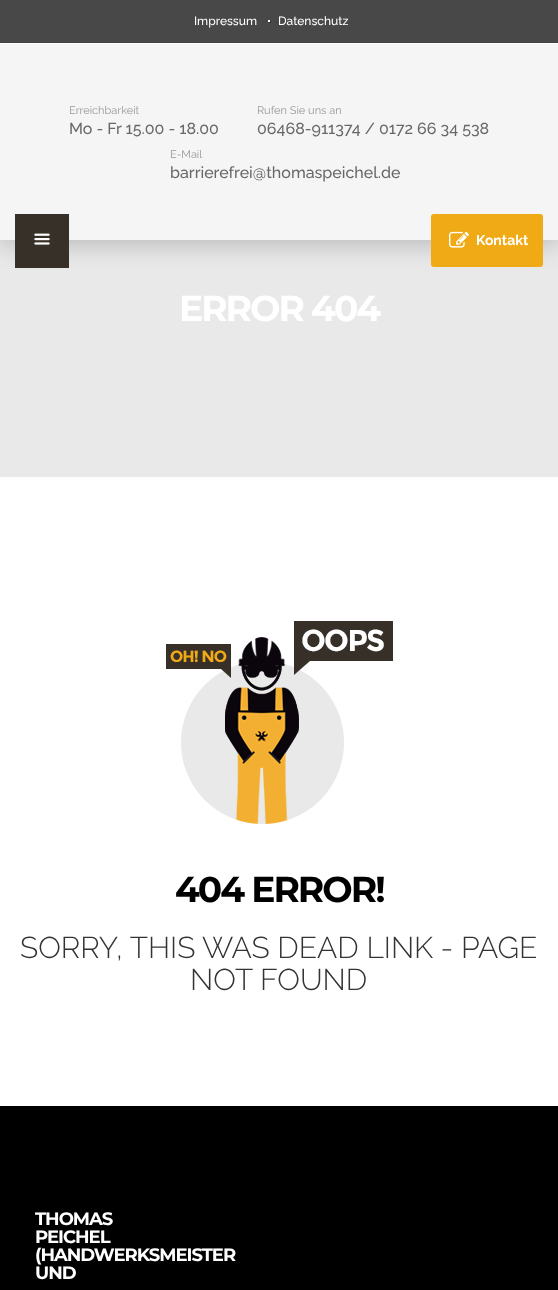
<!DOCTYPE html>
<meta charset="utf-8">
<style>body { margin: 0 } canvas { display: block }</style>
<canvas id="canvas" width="558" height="1290"></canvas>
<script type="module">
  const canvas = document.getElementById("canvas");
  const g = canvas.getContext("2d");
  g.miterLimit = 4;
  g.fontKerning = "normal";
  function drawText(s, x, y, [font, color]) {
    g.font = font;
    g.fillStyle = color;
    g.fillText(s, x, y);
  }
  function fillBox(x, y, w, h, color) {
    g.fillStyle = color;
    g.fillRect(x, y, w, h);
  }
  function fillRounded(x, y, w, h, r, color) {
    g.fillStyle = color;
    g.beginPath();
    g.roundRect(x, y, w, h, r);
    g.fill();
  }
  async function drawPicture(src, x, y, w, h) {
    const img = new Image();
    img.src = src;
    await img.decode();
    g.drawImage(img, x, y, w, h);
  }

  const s1 = ["500 12px Raleway", "#FFFFFF"];
  const s2 = ["11px Raleway", "#999999"];
  const s3 = ["500 16px Raleway", "#686868"];
  const s4 = ["bold 14px Raleway", "#FFFFFF"];
  const s5 = ["bold 36px Montserrat", "#FFFFFF"];
  const s6 = ["bold 36px Montserrat", "#000000"];
  const s7 = ["300 30px Raleway", "#333333"];
  const s8 = ["bold 18px Montserrat", "#FFFFFF"];

  fillBox(0, 0, 558, 1290, "#FFFFFF");
  fillBox(0, 240, 558, 237, "#E9E9E9");
  g.fillStyle = "rgba(0, 0, 0, 0.2)";
  g.filter = "blur(12px)";
  g.beginPath();
  g.rect(0, 48, 558, 197);
  g.fill();
  g.filter = "none";
  fillBox(0, 0, 558, 42, "#484848");
  fillBox(0, 42, 558, 1, "#414141");
  drawText("Impressum", 194, 25, s1);
  g.fillStyle = "#323232";
  g.beginPath();
  g.moveTo(269, 22);
  g.lineTo(269, 23);
  g.lineTo(271, 23);
  g.lineTo(271, 21);
  g.lineTo(270, 21);
  g.lineTo(270, 22);
  g.closePath();
  g.fill();
  fillBox(268, 20, 2, 2, "#FFFFFF");
  drawText("Datenschutz", 278, 25, s1);
  fillBox(0, 44, 558, 196, "#F5F5F5");
  fillBox(0, 43, 558, 1, "#FFFFFF");
  drawText("Erreichbarkeit", 69, 114, s2);
  drawText("Mo - Fr 15.00 - 18.00", 69, 134, s3);
  drawText("Rufen Sie uns an", 257, 114, s2);
  drawText("06468-911374 / 0172 66 34 538", 257, 134, s3);
  drawText("E-Mail", 170, 158, s2);
  drawText("barrierefrei@thomaspeichel.de", 170, 178, s3);
  fillBox(15, 214, 54, 54, "#373028");
  await drawPicture("pic1.png", 34, 233, 16, 12);
  fillRounded(431, 214, 112, 53, 3, "#EFAA15");
  await drawPicture("pic2.png", 449, 231, 20, 17);
  drawText("Kontakt", 476, 245, s4);
  g.letterSpacing = "-2px";
  drawText("ERROR 404", 179, 321, s5);
  await drawPicture("pic3.png", 166, 621, 227, 203);
  drawText("404 ERROR!", 175, 902, s6);
  g.letterSpacing = "0px";
  drawText("SORRY, THIS WAS DEAD LINK - PAGE", 20, 958, s7);
  drawText("NOT FOUND", 190, 990, s7);
  fillBox(0, 1106, 558, 184, "#000000");
  g.letterSpacing = "-1px";
  drawText("THOMAS", 35, 1225, s8);
  drawText("PEICHEL", 35, 1243, s8);
  drawText("(HANDWERKSMEISTER", 35, 1261, s8);
  drawText("UND", 35, 1279, s8);
</script>
